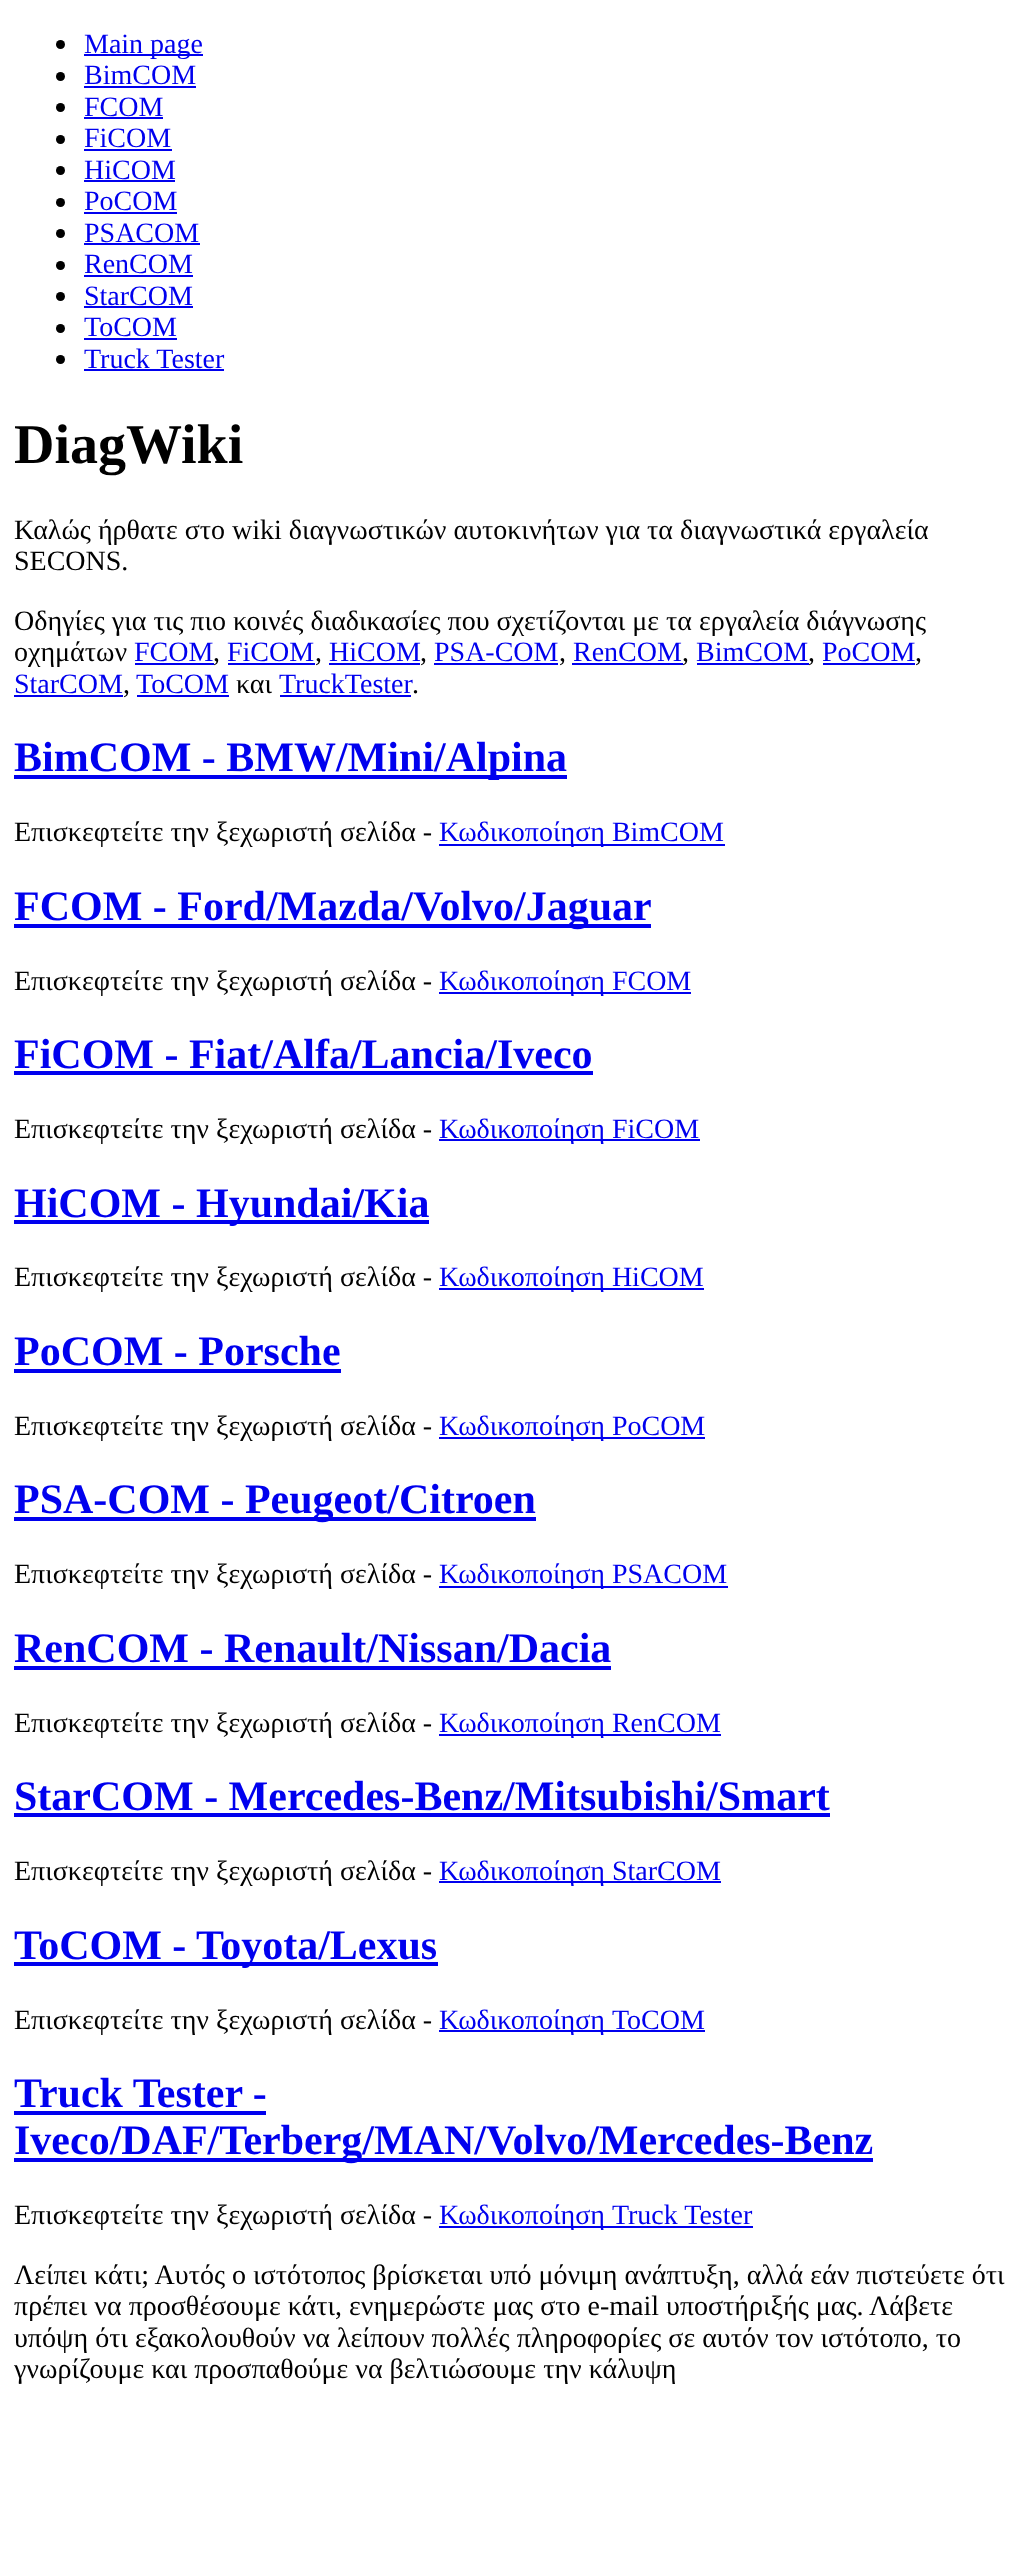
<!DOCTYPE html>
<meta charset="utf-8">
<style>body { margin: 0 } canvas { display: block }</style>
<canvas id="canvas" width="1032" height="2562"></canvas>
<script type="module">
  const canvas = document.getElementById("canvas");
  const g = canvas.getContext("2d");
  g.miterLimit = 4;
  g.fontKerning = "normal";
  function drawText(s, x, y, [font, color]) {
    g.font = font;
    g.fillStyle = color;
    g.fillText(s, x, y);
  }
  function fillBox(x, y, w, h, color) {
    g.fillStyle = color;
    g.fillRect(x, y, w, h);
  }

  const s1 = ["28px Liberation Serif", "#0000EE"];
  const s2 = ["bold 56px Liberation Serif", "#000000"];
  const s3 = ["28px Liberation Serif", "#000000"];
  const s4 = ["bold 42px Liberation Serif", "#0000EE"];

  fillBox(0, 0, 1032, 2562, "#FFFFFF");
  g.fillStyle = "#000000";
  g.beginPath();
  g.arc(60.5, 44.5, 4.5, 0, Math.PI * 2);
  g.fill();
  fillBox(84, 54, 119, 2, "#0000EE");
  drawText("Main page", 84, 53, s1);
  g.fillStyle = "#000000";
  g.beginPath();
  g.arc(60.5, 76.5, 4.5, 0, Math.PI * 2);
  g.fill();
  drawText("BimCOM", 84, 84, s1);
  fillBox(84, 86, 112, 2, "#0000EE");
  g.fillStyle = "#000000";
  g.beginPath();
  g.arc(60.5, 107.5, 4.5, 0, Math.PI * 2);
  g.fill();
  drawText("FCOM", 84, 116, s1);
  fillBox(84, 117, 79, 2, "#0000EE");
  g.fillStyle = "#000000";
  g.beginPath();
  g.arc(60.5, 139.5, 4.5, 0, Math.PI * 2);
  g.fill();
  drawText("FiCOM", 84, 147, s1);
  fillBox(84, 149, 88, 2, "#0000EE");
  g.fillStyle = "#000000";
  g.beginPath();
  g.arc(60.5, 170.5, 4.5, 0, Math.PI * 2);
  g.fill();
  drawText("HiCOM", 84, 179, s1);
  fillBox(84, 180, 91, 2, "#0000EE");
  g.fillStyle = "#000000";
  g.beginPath();
  g.arc(60.5, 202.5, 4.5, 0, Math.PI * 2);
  g.fill();
  drawText("PoCOM", 84, 210, s1);
  fillBox(84, 212, 93, 2, "#0000EE");
  g.fillStyle = "#000000";
  g.beginPath();
  g.arc(60.5, 233.5, 4.5, 0, Math.PI * 2);
  g.fill();
  drawText("PSACOM", 84, 242, s1);
  fillBox(84, 243, 116, 2, "#0000EE");
  g.fillStyle = "#000000";
  g.beginPath();
  g.arc(60.5, 265.5, 4.5, 0, Math.PI * 2);
  g.fill();
  drawText("RenCOM", 84, 273, s1);
  fillBox(84, 275, 109, 2, "#0000EE");
  g.fillStyle = "#000000";
  g.beginPath();
  g.arc(60.5, 296.5, 4.5, 0, Math.PI * 2);
  g.fill();
  drawText("StarCOM", 84, 305, s1);
  fillBox(84, 306, 109, 2, "#0000EE");
  g.fillStyle = "#000000";
  g.beginPath();
  g.arc(60.5, 328.5, 4.5, 0, Math.PI * 2);
  g.fill();
  drawText("ToCOM", 84, 336, s1);
  fillBox(84, 338, 93, 2, "#0000EE");
  g.fillStyle = "#000000";
  g.beginPath();
  g.arc(60.5, 359.5, 4.5, 0, Math.PI * 2);
  g.fill();
  drawText("Truck Tester", 84, 368, s1);
  fillBox(84, 369, 140, 2, "#0000EE");
  drawText("DiagWiki", 14, 463, s2);
  drawText("Καλώς ήρθατε στο wiki διαγνωστικών αυτοκινήτων για τα διαγνωστικά εργαλεία", 14, 539, s3);
  drawText("SECONS.", 14, 570, s3);
  drawText("Οδηγίες για τις πιο κοινές διαδικασίες που σχετίζονται με τα εργαλεία διάγνωσης", 14, 630, s3);
  drawText("οχημάτων", 14, 661, s3);
  drawText("FCOM", 134, 661, s1);
  fillBox(135, 663, 79, 2, "#0000EE");
  drawText(",", 213, 661, s3);
  drawText("FiCOM", 227, 661, s1);
  fillBox(228, 663, 87, 2, "#0000EE");
  drawText(",", 315, 661, s3);
  drawText("HiCOM", 329, 661, s1);
  fillBox(329, 663, 91, 2, "#0000EE");
  drawText(",", 420, 661, s3);
  drawText("PSA-COM", 434, 661, s1);
  fillBox(434, 663, 124, 2, "#0000EE");
  drawText(",", 559, 661, s3);
  drawText("RenCOM", 573, 661, s1);
  fillBox(572, 663, 111, 2, "#0000EE");
  drawText(",", 682, 661, s3);
  drawText("BimCOM", 696, 661, s1);
  fillBox(697, 663, 112, 2, "#0000EE");
  drawText(",", 808, 661, s3);
  drawText("PoCOM", 822, 661, s1);
  fillBox(823, 663, 92, 2, "#0000EE");
  drawText(",", 915, 661, s3);
  drawText("StarCOM", 14, 693, s1);
  fillBox(14, 695, 109, 2, "#0000EE");
  drawText(",", 123, 693, s3);
  drawText("ToCOM", 136, 693, s1);
  fillBox(137, 695, 92, 2, "#0000EE");
  drawText("και", 236, 693, s3);
  drawText("TruckTester", 279, 693, s1);
  fillBox(280, 695, 131, 2, "#0000EE");
  drawText(".", 412, 693, s3);
  fillBox(14, 775, 553, 4, "#0000EE");
  drawText("BimCOM - BMW/Mini/Alpina", 14, 771, s4);
  drawText("Επισκεφτείτε την ξεχωριστή σελίδα -", 14, 841, s3);
  fillBox(439, 844, 286, 2, "#0000EE");
  drawText("Κωδικοποίηση BimCOM", 439, 841, s1);
  fillBox(14, 924, 637, 4, "#0000EE");
  drawText("FCOM - Ford/Mazda/Volvo/Jaguar", 14, 920, s4);
  drawText("Επισκεφτείτε την ξεχωριστή σελίδα -", 14, 990, s3);
  fillBox(439, 992, 252, 2, "#0000EE");
  drawText("Κωδικοποίηση FCOM", 439, 990, s1);
  drawText("FiCOM - Fiat/Alfa/Lancia/Iveco", 14, 1068, s4);
  fillBox(14, 1071, 579, 4, "#0000EE");
  drawText("Επισκεφτείτε την ξεχωριστή σελίδα -", 14, 1138, s3);
  fillBox(439, 1139, 261, 2, "#0000EE");
  drawText("Κωδικοποίηση FiCOM", 439, 1138, s1);
  fillBox(14, 1220, 415, 4, "#0000EE");
  drawText("HiCOM - Hyundai/Kia", 14, 1217, s4);
  drawText("Επισκεφτείτε την ξεχωριστή σελίδα -", 14, 1286, s3);
  fillBox(439, 1288, 265, 2, "#0000EE");
  drawText("Κωδικοποίηση HiCOM", 439, 1286, s1);
  drawText("PoCOM - Porsche", 14, 1365, s4);
  fillBox(14, 1369, 327, 4, "#0000EE");
  drawText("Επισκεφτείτε την ξεχωριστή σελίδα -", 14, 1435, s3);
  fillBox(439, 1437, 266, 2, "#0000EE");
  drawText("Κωδικοποίηση PoCOM", 439, 1435, s1);
  fillBox(14, 1517, 522, 4, "#0000EE");
  drawText("PSA-COM - Peugeot/Citroen", 14, 1513, s4);
  drawText("Επισκεφτείτε την ξεχωριστή σελίδα -", 14, 1583, s3);
  fillBox(439, 1586, 289, 2, "#0000EE");
  drawText("Κωδικοποίηση PSACOM", 439, 1583, s1);
  drawText("RenCOM - Renault/Nissan/Dacia", 14, 1662, s4);
  fillBox(14, 1666, 597, 4, "#0000EE");
  drawText("Επισκεφτείτε την ξεχωριστή σελίδα -", 14, 1732, s3);
  fillBox(439, 1734, 282, 2, "#0000EE");
  drawText("Κωδικοποίηση RenCOM", 439, 1732, s1);
  drawText("StarCOM - Mercedes-Benz/Mitsubishi/Smart", 14, 1810, s4);
  fillBox(14, 1813, 816, 4, "#0000EE");
  drawText("Επισκεφτείτε την ξεχωριστή σελίδα -", 14, 1880, s3);
  fillBox(439, 1881, 282, 2, "#0000EE");
  drawText("Κωδικοποίηση StarCOM", 439, 1880, s1);
  fillBox(14, 1962, 424, 4, "#0000EE");
  drawText("ToCOM - Toyota/Lexus", 14, 1959, s4);
  drawText("Επισκεφτείτε την ξεχωριστή σελίδα -", 14, 2029, s3);
  fillBox(439, 2030, 266, 2, "#0000EE");
  drawText("Κωδικοποίηση ToCOM", 439, 2029, s1);
  drawText("Truck Tester -", 14, 2107, s4);
  fillBox(14, 2111, 252, 4, "#0000EE");
  fillBox(14, 2158, 859, 4, "#0000EE");
  drawText("Iveco/DAF/Terberg/MAN/Volvo/Mercedes-Benz", 14, 2154, s4);
  drawText("Επισκεφτείτε την ξεχωριστή σελίδα -", 14, 2224, s3);
  fillBox(439, 2226, 314, 2, "#0000EE");
  drawText("Κωδικοποίηση Truck Tester", 439, 2224, s1);
  drawText("Λείπει κάτι; Αυτός ο ιστότοπος βρίσκεται υπό μόνιμη ανάπτυξη, αλλά εάν πιστεύετε ότι", 14, 2284, s3);
  drawText("πρέπει να προσθέσουμε κάτι, ενημερώστε μας στο e-mail υποστήριξής μας. Λάβετε", 14, 2315, s3);
  drawText("υπόψη ότι εξακολουθούν να λείπουν πολλές πληροφορίες σε αυτόν τον ιστότοπο, το", 14, 2347, s3);
  drawText("γνωρίζουμε και προσπαθούμε να βελτιώσουμε την κάλυψη", 14, 2378, s3);
</script>
